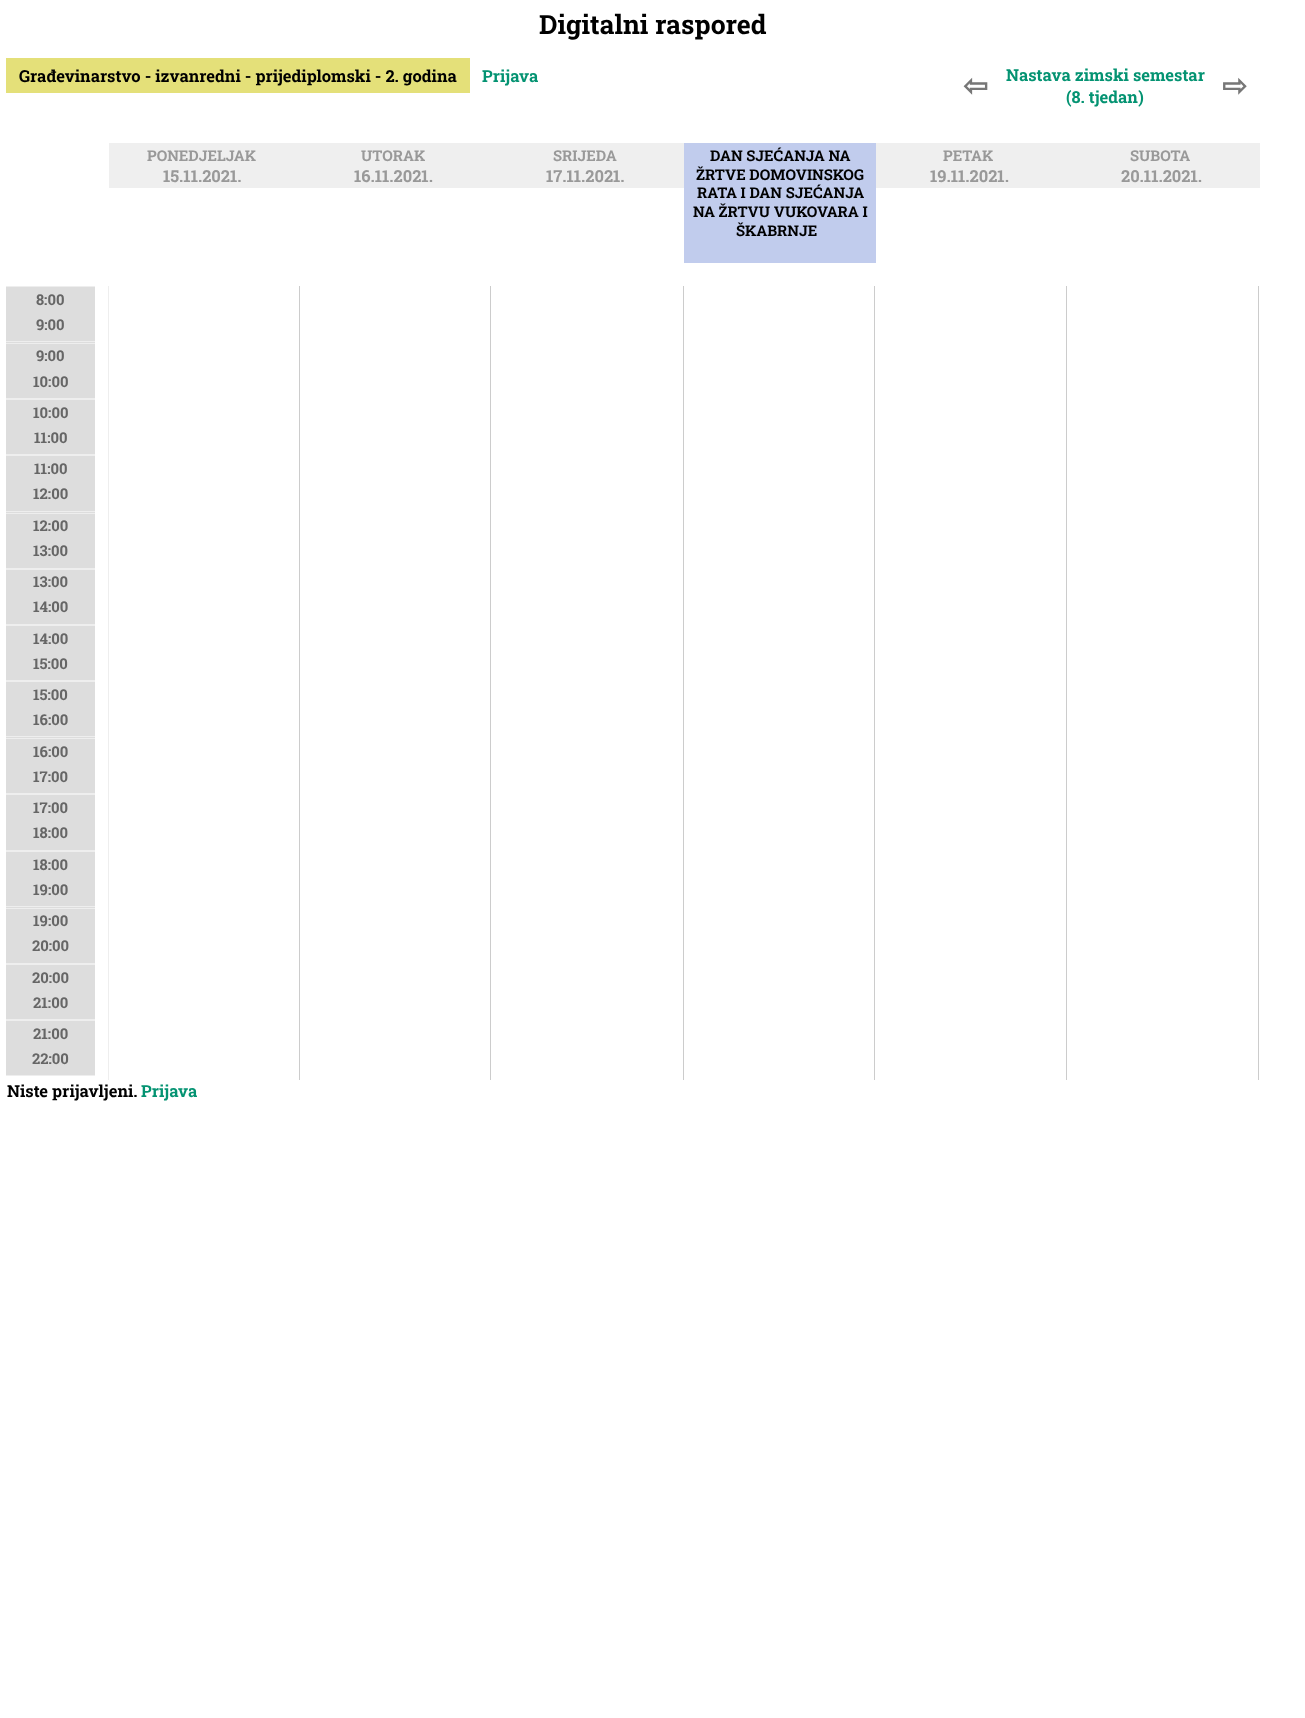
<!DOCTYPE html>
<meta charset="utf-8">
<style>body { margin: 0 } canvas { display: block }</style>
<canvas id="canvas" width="1305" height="1718"></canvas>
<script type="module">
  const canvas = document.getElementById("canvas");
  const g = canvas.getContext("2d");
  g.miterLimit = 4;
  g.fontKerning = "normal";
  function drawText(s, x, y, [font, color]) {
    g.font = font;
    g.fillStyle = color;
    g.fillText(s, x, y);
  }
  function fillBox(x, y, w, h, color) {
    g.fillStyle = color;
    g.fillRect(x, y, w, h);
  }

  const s1 = ["bold 26.5px Roboto Slab", "#000000"];
  const s2 = ["bold 16.55px Roboto Slab", "#000000"];
  const s3 = ["bold 16.55px Roboto Slab", "#049372"];
  const s4 = ["bold 30px DejaVu Sans", "#777777"];
  const s5 = ["bold 14.9px Roboto Slab", "#999999"];
  const s6 = ["bold 16.55px Roboto Slab", "#999999"];
  const s7 = ["bold 14.9px Roboto Slab", "#000000"];
  const s8 = ["bold 14.9px Roboto Slab", "#666666"];

  fillBox(0, 0, 1305, 1718, "#FFFFFF");
  drawText("Digitalni raspored", 539, 34, s1);
  fillBox(6, 58, 464, 35, "#E4E079");
  drawText("Građevinarstvo - izvanredni - prijediplomski - 2. godina", 19, 82, s2);
  drawText("Prijava", 482, 82, s3);
  drawText("⇦", 963, 96, s4);
  drawText("Nastava zimski semestar", 1006, 81, s3);
  drawText("(8. tjedan)", 1066, 103, s3);
  drawText("⇨", 1222, 96, s4);
  fillBox(109, 143, 575, 45, "#EFEFEF");
  drawText("PONEDJELJAK", 147, 161, s5);
  drawText("15.11.2021.", 163, 182, s6);
  drawText("UTORAK", 361, 161, s5);
  drawText("16.11.2021.", 354, 182, s6);
  drawText("SRIJEDA", 553, 161, s5);
  drawText("17.11.2021.", 546, 182, s6);
  fillBox(684, 143, 192, 120, "#C1CCED");
  drawText("DAN SJEĆANJA NA", 710, 161, s7);
  drawText("ŽRTVE DOMOVINSKOG", 696, 180, s7);
  drawText("RATA I DAN SJEĆANJA", 697, 198, s7);
  drawText("NA ŽRTVU VUKOVARA I", 693, 217, s7);
  drawText("ŠKABRNJE", 736, 236, s7);
  fillBox(876, 143, 384, 45, "#EFEFEF");
  drawText("PETAK", 943, 161, s5);
  drawText("19.11.2021.", 930, 182, s6);
  drawText("SUBOTA", 1130, 161, s5);
  drawText("20.11.2021.", 1121, 182, s6);
  fillBox(108, 286, 1, 794, "#EEEEEE");
  fillBox(6, 287, 89, 56, "#DDDDDD");
  fillBox(6, 286, 89, 1, "#EEEEEE");
  fillBox(6, 341, 89, 1, "#EEEEEE");
  drawText("8:00", 36, 305, s8);
  drawText("9:00", 36, 330, s8);
  fillBox(6, 344, 89, 54, "#DDDDDD");
  fillBox(6, 343, 89, 1, "#EEEEEE");
  fillBox(6, 398, 89, 2, "#EEEEEE");
  drawText("9:00", 36, 361, s8);
  drawText("10:00", 33, 387, s8);
  fillBox(6, 400, 89, 54, "#DDDDDD");
  fillBox(6, 454, 89, 2, "#EEEEEE");
  drawText("10:00", 33, 418, s8);
  drawText("11:00", 34, 443, s8);
  fillBox(6, 456, 89, 57, "#DDDDDD");
  fillBox(6, 511, 89, 1, "#EEEEEE");
  drawText("11:00", 34, 474, s8);
  drawText("12:00", 33, 499, s8);
  fillBox(6, 514, 89, 54, "#DDDDDD");
  fillBox(6, 513, 89, 1, "#EEEEEE");
  fillBox(6, 568, 89, 2, "#EEEEEE");
  drawText("12:00", 33, 531, s8);
  drawText("13:00", 33, 556, s8);
  fillBox(6, 570, 89, 54, "#DDDDDD");
  fillBox(6, 624, 89, 2, "#EEEEEE");
  drawText("13:00", 33, 587, s8);
  drawText("14:00", 33, 612, s8);
  fillBox(6, 626, 89, 54, "#DDDDDD");
  fillBox(6, 680, 89, 2, "#EEEEEE");
  drawText("14:00", 33, 644, s8);
  drawText("15:00", 33, 669, s8);
  fillBox(6, 682, 89, 56, "#DDDDDD");
  fillBox(6, 736, 89, 1, "#EEEEEE");
  drawText("15:00", 33, 700, s8);
  drawText("16:00", 33, 725, s8);
  fillBox(6, 739, 89, 54, "#DDDDDD");
  fillBox(6, 738, 89, 1, "#EEEEEE");
  fillBox(6, 793, 89, 2, "#EEEEEE");
  drawText("16:00", 33, 757, s8);
  drawText("17:00", 33, 782, s8);
  fillBox(6, 795, 89, 55, "#DDDDDD");
  fillBox(6, 850, 89, 2, "#EEEEEE");
  drawText("17:00", 33, 813, s8);
  drawText("18:00", 33, 838, s8);
  fillBox(6, 852, 89, 56, "#DDDDDD");
  fillBox(6, 906, 89, 1, "#EEEEEE");
  drawText("18:00", 33, 870, s8);
  drawText("19:00", 33, 895, s8);
  fillBox(6, 909, 89, 54, "#DDDDDD");
  fillBox(6, 908, 89, 1, "#EEEEEE");
  fillBox(6, 963, 89, 2, "#EEEEEE");
  drawText("19:00", 33, 926, s8);
  drawText("20:00", 32, 951, s8);
  fillBox(6, 965, 89, 54, "#DDDDDD");
  fillBox(6, 1019, 89, 2, "#EEEEEE");
  drawText("20:00", 32, 983, s8);
  drawText("21:00", 33, 1008, s8);
  fillBox(6, 1021, 89, 54, "#DDDDDD");
  fillBox(6, 1075, 89, 1, "#EEEEEE");
  drawText("21:00", 33, 1039, s8);
  drawText("22:00", 32, 1064, s8);
  fillBox(299, 286, 1, 794, "#CCCCCC");
  fillBox(490, 286, 1, 794, "#CCCCCC");
  fillBox(683, 286, 1, 794, "#CCCCCC");
  fillBox(874, 286, 1, 794, "#CCCCCC");
  fillBox(1066, 286, 1, 794, "#CCCCCC");
  fillBox(1258, 286, 1, 794, "#CCCCCC");
  drawText("Niste prijavljeni.", 7, 1097, s2);
  drawText("Prijava", 141, 1097, s3);
</script>
